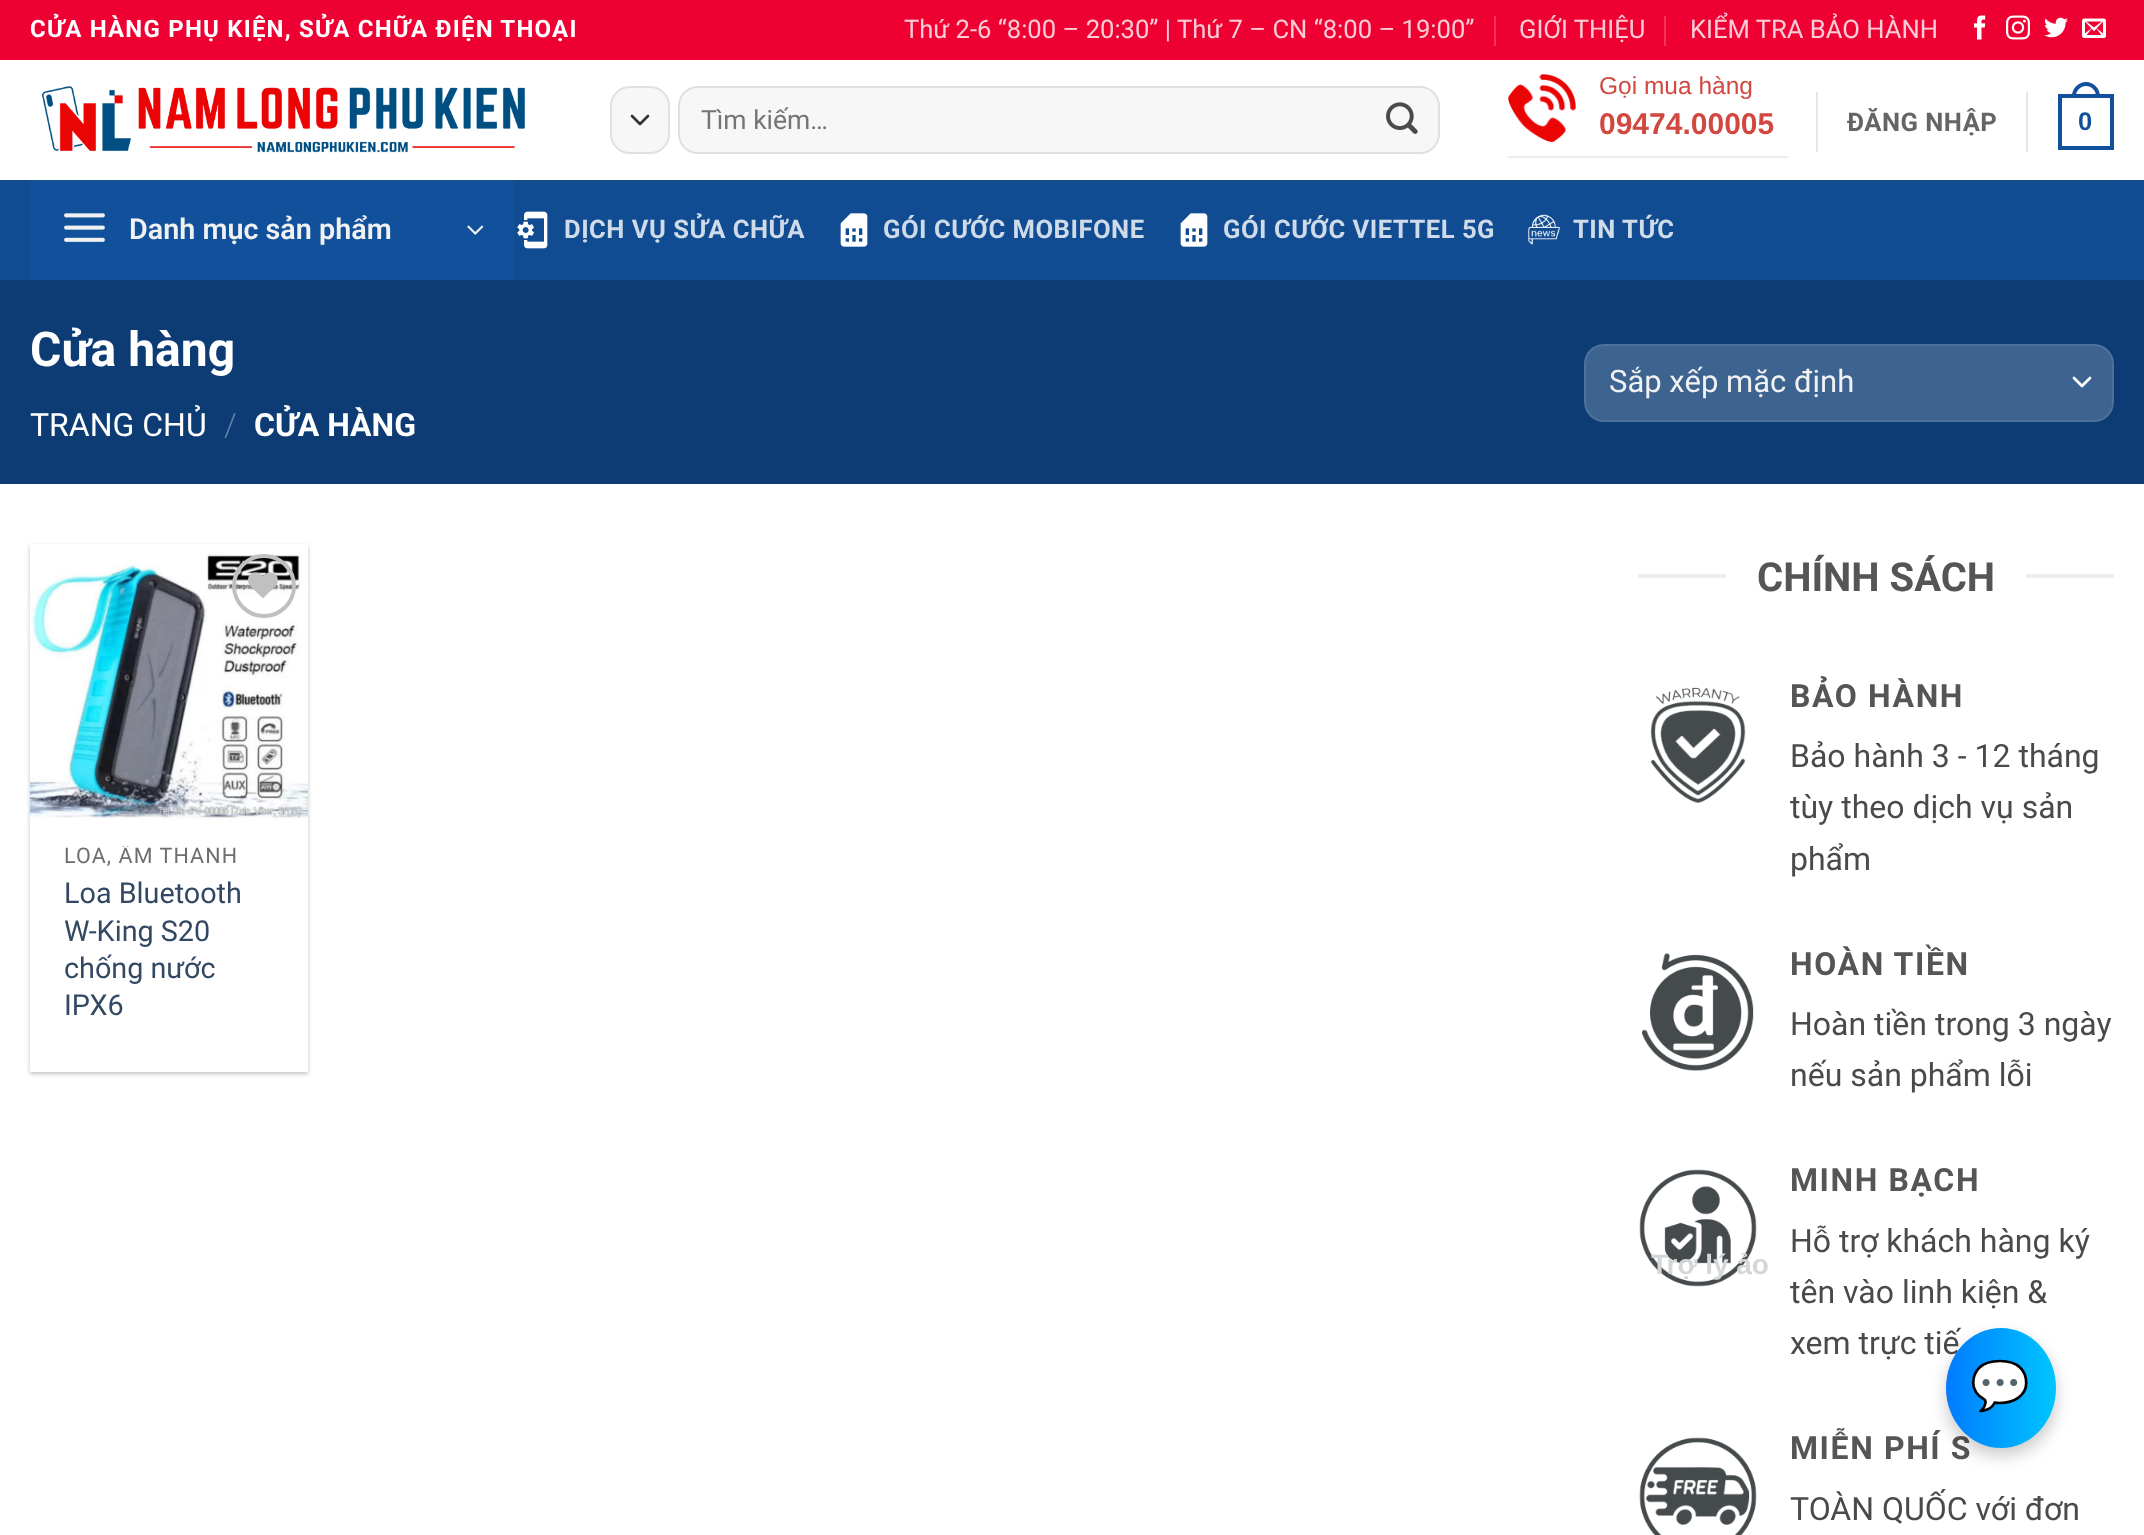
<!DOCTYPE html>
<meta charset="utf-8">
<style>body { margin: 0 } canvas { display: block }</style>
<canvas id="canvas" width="2144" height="1535"></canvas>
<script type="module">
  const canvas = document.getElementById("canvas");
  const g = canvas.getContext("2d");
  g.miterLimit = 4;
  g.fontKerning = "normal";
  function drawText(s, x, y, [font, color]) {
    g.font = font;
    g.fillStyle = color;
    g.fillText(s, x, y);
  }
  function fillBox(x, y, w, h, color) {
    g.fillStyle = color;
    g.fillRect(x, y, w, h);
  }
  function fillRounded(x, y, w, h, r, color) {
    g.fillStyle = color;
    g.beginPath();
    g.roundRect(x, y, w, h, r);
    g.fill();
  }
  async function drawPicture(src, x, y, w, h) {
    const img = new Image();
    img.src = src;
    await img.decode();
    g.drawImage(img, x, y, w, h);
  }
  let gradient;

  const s1 = ["bold 24px Roboto", "#FFFFFF"];
  const s2 = ["25.6px Roboto", "#FCCCD6"];
  const s3 = ["26.5px Roboto", "#757575"];
  const s4 = ["24.5px Liberation Sans", "#D14841"];
  const s5 = ["bold 30px Liberation Sans", "#D14841"];
  const s6 = ["bold 25.6px Roboto", "#656565"];
  const s7 = ["bold 25.6px Liberation Sans", "#11519B"];
  const s8 = ["600 28.75px Roboto", "#F1F1F1"];
  const s9 = ["bold 25.6px Roboto", "#CFDBE9"];
  const s10 = ["bold 48px Roboto", "#FFFFFF"];
  const s11 = ["32px Roboto", "#FFFFFF"];
  const s12 = ["300 32px Roboto", "#6280A5"];
  const s13 = ["bold 32px Roboto", "#FFFFFF"];
  const s14 = ["31px Roboto", "#F1F1F1"];
  const s15 = ["21.5px Roboto", "#6E6E6E"];
  const s16 = ["28.75px Roboto", "#334862"];
  const s17 = ["bold 40px Roboto", "#555555"];
  const s18 = ["bold 32px Roboto", "#555555"];
  const s19 = ["32px Roboto", "#4A4A4A"];
  const s20 = ["bold 28px Liberation Sans", "#D5D6D7"];
  const s21 = ["bold 48px Noto Color Emoji", "#FFFFFF"];

  fillBox(0, 0, 2144, 1535, "#FFFFFF");
  fillBox(0, 0, 2144, 60, "#EE0033");
  g.letterSpacing = "1.2px";
  drawText("CỬA HÀNG PHỤ KIỆN, SỬA CHỮA ĐIỆN THOẠI", 30, 37, s1);
  g.letterSpacing = "0px";
  drawText("Thứ 2-6 “8:00 – 20:30” | Thứ 7 – CN “8:00 – 19:00”", 904, 38, s2);
  fillBox(1494, 16, 2, 30, "#F1335C");
  drawText("GIỚI THIỆU", 1519, 38, s2);
  fillBox(1664, 16, 2, 30, "#F1335C");
  drawText("KIỂM TRA BẢO HÀNH", 1690, 38, s2);
  await drawPicture("pic1.png", 1974, 15, 12, 25);
  await drawPicture("pic2.png", 2006, 15, 24, 25);
  await drawPicture("pic3.png", 2044, 17, 24, 21);
  await drawPicture("pic4.png", 2082, 18, 24, 20);
  await drawPicture("pic5.png", 42, 86, 483, 67);
  fillRounded(610, 86, 60, 68, 20, "#F7F7F7");
  g.beginPath();
  g.moveTo(632, 116);
  g.lineTo(640, 124);
  g.lineTo(648, 116);
  g.strokeStyle = "#333333";
  g.lineWidth = 2.7;
  g.lineCap = "round";
  g.lineJoin = "round";
  g.stroke();
  g.beginPath();
  g.roundRect(611, 87, 58, 66, 19);
  g.strokeStyle = "rgba(0, 0, 0, 0.09)";
  g.lineWidth = 2;
  g.lineJoin = "miter";
  g.stroke();
  fillRounded(678, 86, 762, 68, 20, "#F7F7F7");
  g.beginPath();
  g.roundRect(679, 87, 760, 66, 19);
  g.stroke();
  drawText("Tìm kiếm…", 701, 129, s3);
  await drawPicture("pic6.png", 1386, 102, 32, 32);
  fillBox(1508, 156, 280, 2, "#ECECEC");
  await drawPicture("pic7.png", 1508, 74, 68, 68);
  drawText("Gọi mua hàng", 1599, 94, s4);
  drawText("09474.00005", 1599, 134, s5);
  fillBox(1816, 92, 2, 60, "#E6E6E6");
  g.letterSpacing = "0.5px";
  drawText("ĐĂNG NHẬP", 1847, 131, s6);
  fillBox(2026, 92, 2, 60, "#E6E6E6");
  g.strokeStyle = "#11519B";
  g.lineWidth = 4;
  g.strokeRect(2060, 96, 52, 52);
  g.fillStyle = "#11519B";
  g.beginPath();
  g.moveTo(2086, 82);
  g.bezierCurveTo(2093.5, 82, 2100, 88.5, 2100, 96);
  g.lineTo(2100, 98);
  g.lineTo(2072, 98);
  g.lineTo(2072, 96);
  g.bezierCurveTo(2072, 88.5, 2078.5, 82, 2086, 82);
  g.closePath();
  g.moveTo(2086, 86);
  g.bezierCurveTo(2091.5, 86, 2096, 90.5, 2096, 96);
  g.lineTo(2096, 98);
  g.lineTo(2076, 98);
  g.lineTo(2076, 96);
  g.bezierCurveTo(2076, 90.5, 2080.5, 86, 2086, 86);
  g.closePath();
  g.fill("evenodd");
  drawText("0", 2078, 130, s7);
  fillBox(0, 180, 2144, 100, "#114C92");
  fillBox(514, 180, 1600, 2, "#174C8B");
  fillBox(30, 182, 484, 98, "#11519B");
  fillBox(30, 180, 484, 2, "#175093");
  await drawPicture("pic8.png", 64, 213, 41, 29);
  g.letterSpacing = "0px";
  drawText("Danh mục sản phẩm", 129, 239, s8);
  await drawPicture("pic9.png", 467, 225, 17, 10);
  await drawPicture("pic10.png", 517, 211, 31, 38);
  g.letterSpacing = "0.5px";
  drawText("DỊCH VỤ SỬA CHỮA", 564, 238, s9);
  await drawPicture("pic11.png", 840, 213, 28, 34);
  drawText("GÓI CƯỚC MOBIFONE", 883, 238, s9);
  await drawPicture("pic11.png", 1180, 213, 28, 34);
  drawText("GÓI CƯỚC VIETTEL 5G", 1223, 238, s9);
  await drawPicture("pic12.png", 1528, 214, 32, 31);
  drawText("TIN TỨC", 1573, 238, s9);
  fillBox(0, 280, 2144, 204, "#0D3C75");
  g.letterSpacing = "0px";
  drawText("Cửa hàng", 30, 366, s10);
  drawText("TRANG CHỦ", 30, 436, s11);
  drawText("/", 224, 436, s12);
  drawText("CỬA HÀNG", 254, 436, s13);
  fillRounded(1584, 344, 530, 78, 20, "#3D6391");
  g.beginPath();
  g.moveTo(2074, 378);
  g.lineTo(2082, 386);
  g.lineTo(2090, 378);
  g.strokeStyle = "#FFFFFF";
  g.lineWidth = 2.7;
  g.lineJoin = "round";
  g.stroke();
  g.beginPath();
  g.roundRect(1585, 345, 528, 76, 19);
  g.strokeStyle = "rgba(255, 255, 255, 0.09)";
  g.lineWidth = 2;
  g.lineJoin = "miter";
  g.stroke();
  drawText("Sắp xếp mặc định", 1609, 392, s14);
  g.save();
  g.beginPath();
  g.moveTo(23, 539);
  g.lineTo(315, 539);
  g.lineTo(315, 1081);
  g.lineTo(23, 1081);
  g.closePath();
  g.moveTo(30, 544);
  g.lineTo(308, 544);
  g.lineTo(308, 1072);
  g.lineTo(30, 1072);
  g.closePath();
  g.clip("evenodd");
  g.fillStyle = "rgba(0, 0, 0, 0.24)";
  g.filter = "blur(2px)";
  g.beginPath();
  g.rect(30, 546, 278, 528);
  g.fill();
  g.filter = "none";
  g.restore();
  await drawPicture("pic13.png", 30, 552, 278, 268);
  g.beginPath();
  g.arc(264, 586, 30, 0, Math.PI * 2);
  g.strokeStyle = "#C0C0C0";
  g.lineWidth = 4;
  g.stroke();
  await drawPicture("pic14.png", 248, 572, 30, 26);
  g.save();
  g.beginPath();
  g.rect(64, 846, 210, 26);
  g.clip();
  g.letterSpacing = "1.1px";
  drawText("LOA, ÂM THANH", 64, 863, s15);
  g.restore();
  drawText("Loa Bluetooth", 64, 903, s16);
  drawText("W-King S20", 64, 941, s16);
  drawText("chống nước", 64, 978, s16);
  drawText("IPX6", 64, 1015, s16);
  fillBox(1638, 574, 88, 4, "#EEEEEE");
  drawText("CHÍNH SÁCH", 1757, 591, s17);
  fillBox(2026, 574, 88, 4, "#EEEEEE");
  await drawPicture("pic15.png", 1650, 687, 96, 117);
  g.letterSpacing = "1.6px";
  drawText("BẢO HÀNH", 1790, 707, s18);
  g.letterSpacing = "0px";
  drawText("Bảo hành 3 - 12 tháng", 1790, 767, s19);
  drawText("tùy theo dịch vụ sản", 1790, 818, s19);
  drawText("phẩm", 1790, 870, s19);
  await drawPicture("pic16.png", 1642, 953, 112, 118);
  g.letterSpacing = "1.6px";
  drawText("HOÀN TIỀN", 1790, 975, s18);
  g.letterSpacing = "0px";
  drawText("Hoàn tiền trong 3 ngày", 1790, 1035, s19);
  drawText("nếu sản phẩm lỗi", 1790, 1086, s19);
  await drawPicture("pic17.png", 1639, 1169, 118, 118);
  g.letterSpacing = "1.6px";
  drawText("MINH BẠCH", 1790, 1191, s18);
  g.letterSpacing = "0px";
  drawText("Hỗ trợ khách hàng ký", 1790, 1252, s19);
  drawText("tên vào linh kiện &", 1790, 1303, s19);
  drawText("xem trực tiế", 1790, 1354, s19);
  await drawPicture("pic18.png", 1639, 1437, 118, 98);
  g.letterSpacing = "1.6px";
  drawText("MIỄN PHÍ S", 1790, 1459, s18);
  g.letterSpacing = "0px";
  drawText("TOÀN QUỐC với đơn", 1790, 1520, s19);
  drawText("Trợ lý ảo", 1651, 1274, s20);
  g.fillStyle = "rgba(0, 0, 0, 0.2)";
  g.filter = "blur(8px)";
  g.beginPath();
  g.roundRect(1946, 1336, 110, 120, 55);
  g.fill();
  g.filter = "none";
  gradient = g.createLinearGradient(1946, 1388, 2056, 1388);
  gradient.addColorStop(0, "#007BFF");
  gradient.addColorStop(1, "#00C6FF");
  g.fillStyle = gradient;
  g.beginPath();
  g.ellipse(2001, 1388, 55, 60, 0, 0, Math.PI * 2);
  g.fill();
  g.letterSpacing = "1px";
  drawText("💬", 1970, 1402, s21);
</script>
